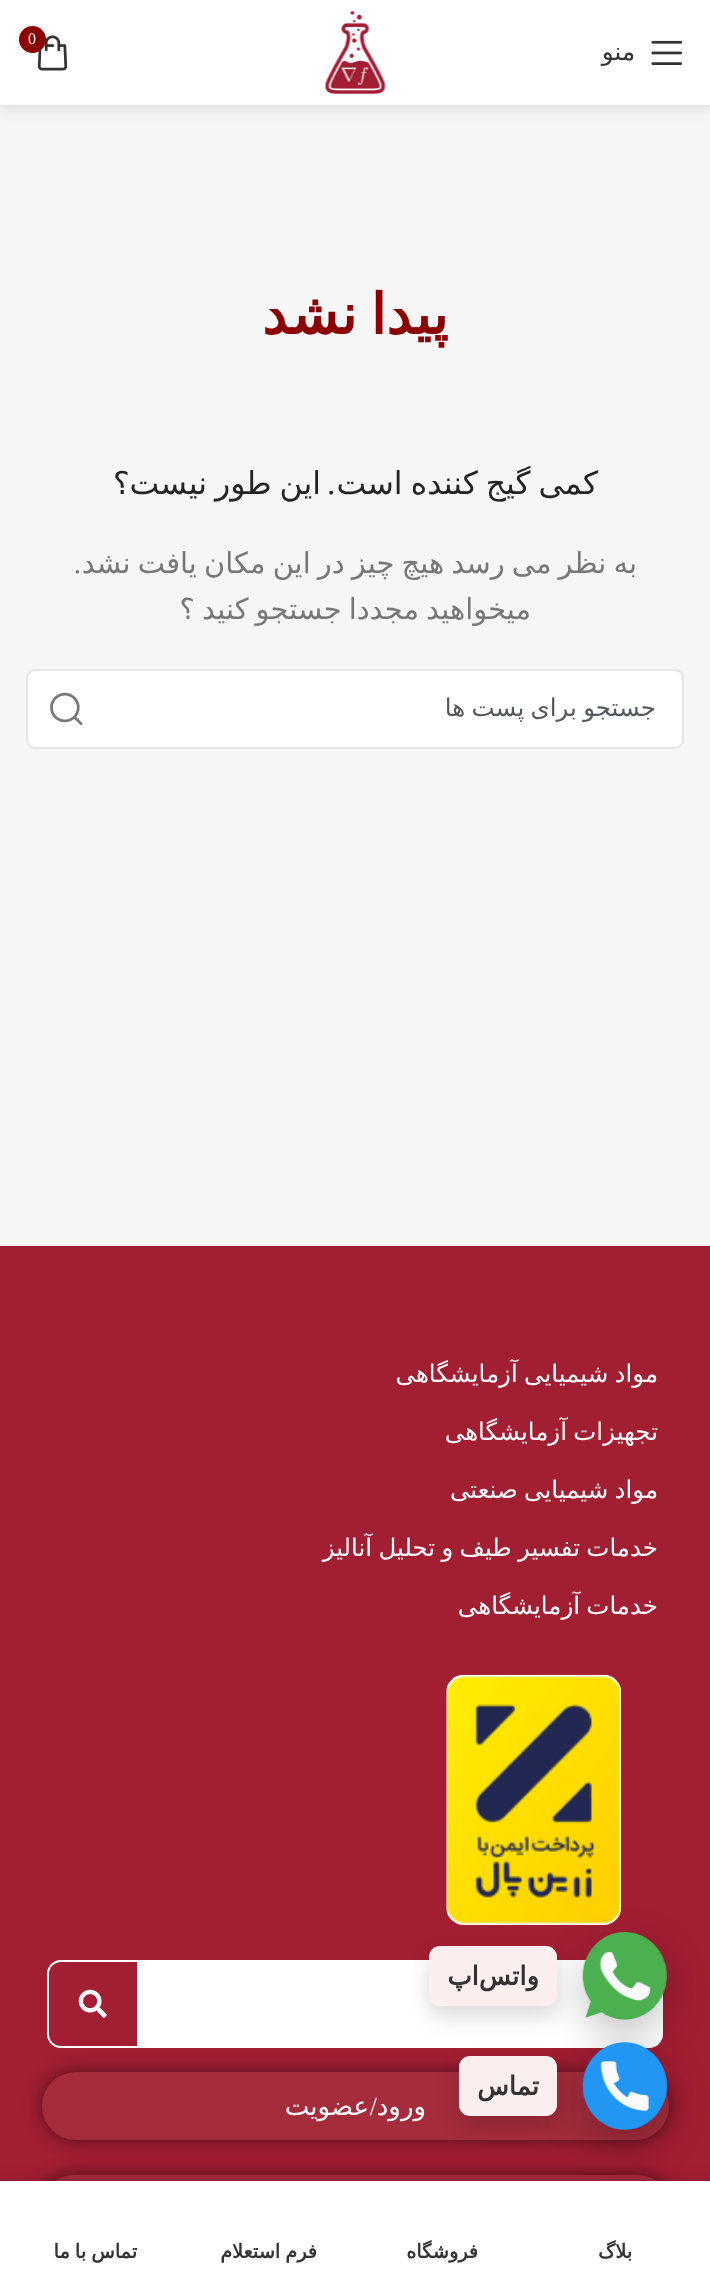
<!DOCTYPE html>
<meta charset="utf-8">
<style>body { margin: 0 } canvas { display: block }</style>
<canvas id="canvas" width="710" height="2276"></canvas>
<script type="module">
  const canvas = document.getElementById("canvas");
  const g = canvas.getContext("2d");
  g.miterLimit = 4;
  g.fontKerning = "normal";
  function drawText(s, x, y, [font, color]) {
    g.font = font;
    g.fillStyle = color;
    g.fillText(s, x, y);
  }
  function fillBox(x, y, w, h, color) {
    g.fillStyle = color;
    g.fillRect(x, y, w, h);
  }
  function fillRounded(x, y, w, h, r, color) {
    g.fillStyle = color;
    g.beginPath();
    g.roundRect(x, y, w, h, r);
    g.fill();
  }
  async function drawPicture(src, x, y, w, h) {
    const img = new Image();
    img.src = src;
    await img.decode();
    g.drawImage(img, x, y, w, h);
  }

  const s1 = ["16px Liberation Serif", "#FFFFFF"];
  const s2 = ["24.5px DejaVu Sans", "#333333"];
  const s3 = ["bold 56px DejaVu Sans", "#8B0000"];
  const s4 = ["31.5px DejaVu Sans", "#242424"];
  const s5 = ["31.5px Liberation Serif", "#242424"];
  const s6 = ["28.9px DejaVu Sans", "#777777"];
  const s7 = ["28.9px Liberation Serif", "#777777"];
  const s8 = ["24.5px DejaVu Sans", "#54595F"];
  const s9 = ["24.5px DejaVu Sans", "#FFFFFF"];
  const s10 = ["26px DejaVu Sans", "#FFFFFF"];
  const s11 = ["26px Liberation Serif", "#FFFFFF"];
  const s12 = ["bold 26px DejaVu Sans", "#333333"];
  const s13 = ["bold 19.25px DejaVu Sans", "#333333"];

  fillBox(0, 0, 710, 2276, "#F6F6F6");
  g.fillStyle = "rgba(0, 0, 0, 0.1)";
  g.filter = "blur(7px)";
  g.beginPath();
  g.rect(0, 2, 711, 107);
  g.fill();
  g.filter = "none";
  fillBox(0, 0, 710, 105, "#FFFFFF");
  fillBox(0, 105, 710, 2, "#E6E6E6");
  await drawPicture("pic1.png", 325, 11, 61, 83);
  await drawPicture("pic2.png", 37, 35, 31, 36);
  g.fillStyle = "#8B0000";
  g.beginPath();
  g.arc(32.5, 39.5, 13.5, 0, Math.PI * 2);
  g.fill();
  drawText("0", 28, 44, s1);
  await drawPicture("pic3.png", 651, 40, 31, 25);
  g.direction = "rtl";
  drawText("منو", 635, 60, s2);
  g.wordSpacing = "-4px";
  drawText("پیدا نشد", 448, 334, s3);
  g.wordSpacing = "-2px";
  drawText("کمی گیج کننده است", 598, 494, s4);
  g.wordSpacing = "0px";
  drawText(".", 335, 494, s5);
  g.wordSpacing = "-2px";
  drawText("این طور نیست؟", 321, 494, s4);
  drawText("به نظر می رسد هیچ چیز در این مکان یافت نشد", 637, 573, s6);
  g.wordSpacing = "0px";
  drawText(".", 81, 573, s7);
  g.wordSpacing = "-2px";
  drawText("میخواهید مجددا جستجو کنید ؟", 531, 619, s6);
  fillRounded(26, 669, 658, 80, 9, "#FFFFFF");
  g.beginPath();
  g.roundRect(27, 670, 656, 78, 8);
  g.strokeStyle = "rgba(0, 0, 0, 0.1)";
  g.lineWidth = 2;
  g.stroke();
  g.wordSpacing = "-1.5px";
  drawText("جستجو برای پست ها", 656, 716, s8);
  await drawPicture("pic4.png", 50, 692, 33, 33);
  fillBox(0, 1246, 710, 935, "#A21E33");
  drawText("مواد شیمیایی آزمایشگاهی", 658, 1382, s9);
  drawText("تجهیزات آزمایشگاهی", 658, 1440, s9);
  drawText("مواد شیمیایی صنعتی", 658, 1498, s9);
  drawText("خدمات تفسیر طیف و تحلیل آنالیز", 658, 1556, s9);
  drawText("خدمات آزمایشگاهی", 658, 1614, s9);
  await drawPicture("pic5.png", 446, 1674, 176, 251);
  g.beginPath();
  g.roundRect(48, 1961, 614, 86, 13);
  g.fill();
  g.strokeStyle = "#FFFFFF";
  g.stroke();
  g.fillStyle = "#A21E33";
  g.beginPath();
  g.roundRect(49, 1962, 88, 84, [12, 0, 0, 12]);
  g.fill();
  await drawPicture("pic6.png", 78, 1989, 29, 29);
  g.fillStyle = "rgba(0, 0, 0, 0.5)";
  g.filter = "blur(9px)";
  g.beginPath();
  g.roundRect(42, 2072, 627, 68, 34);
  g.fill();
  g.filter = "none";
  fillRounded(42, 2072, 627, 68, 34, "#A42C3C");
  g.wordSpacing = "0px";
  drawText("ورود", 426, 2115, s10);
  drawText("/", 377, 2115, s11);
  drawText("عضویت", 369, 2115, s10);
  g.fillStyle = "rgba(0, 0, 0, 0.5)";
  g.filter = "blur(9px)";
  g.beginPath();
  g.roundRect(39, 2175, 633, 69, 34.5);
  g.fill();
  g.filter = "none";
  fillRounded(39, 2175, 633, 69, 34.5, "#A42C3C");
  g.fillStyle = "rgba(0, 0, 0, 0.25)";
  g.filter = "blur(21px)";
  g.beginPath();
  g.roundRect(583, 1948, 84, 84, 42);
  g.fill();
  g.filter = "none";
  await drawPicture("pic7.png", 582, 1932, 85, 88);
  g.fillStyle = "rgba(0, 0, 0, 0.12)";
  g.filter = "blur(8px)";
  g.beginPath();
  g.rect(0, 2181, 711, 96);
  g.fill();
  g.filter = "none";
  fillBox(0, 2181, 710, 95, "#FFFFFF");
  g.fillStyle = "rgba(0, 0, 0, 0.25)";
  g.filter = "blur(21px)";
  g.beginPath();
  g.roundRect(583, 2058, 84, 84, 42);
  g.fill();
  g.filter = "none";
  g.fillStyle = "#0A84FF";
  g.beginPath();
  g.arc(625, 2086, 42, 0, Math.PI * 2);
  g.fill();
  await drawPicture("pic8.png", 582, 2042, 85, 88);
  g.fillStyle = "rgba(0, 0, 0, 0.15)";
  g.filter = "blur(10.5px)";
  g.beginPath();
  g.roundRect(429, 1957, 128, 59, 11);
  g.fill();
  g.filter = "none";
  fillRounded(429, 1946, 128, 60, 11, "#FBEEEF");
  drawText("واتس‌اپ", 539, 1985, s12);
  g.fillStyle = "rgba(0, 0, 0, 0.15)";
  g.filter = "blur(10.5px)";
  g.beginPath();
  g.roundRect(459, 2067, 98, 59, 11);
  g.fill();
  g.filter = "none";
  fillRounded(459, 2056, 98, 60, 11, "#FBEEEF");
  drawText("تماس", 539, 2095, s12);
  drawText("بلاگ", 632, 2258, s13);
  drawText("فروشگاه", 478, 2258, s13);
  g.wordSpacing = "-1px";
  drawText("فرم استعلام", 317, 2258, s13);
  drawText("تماس با ما", 137, 2258, s13);
</script>
